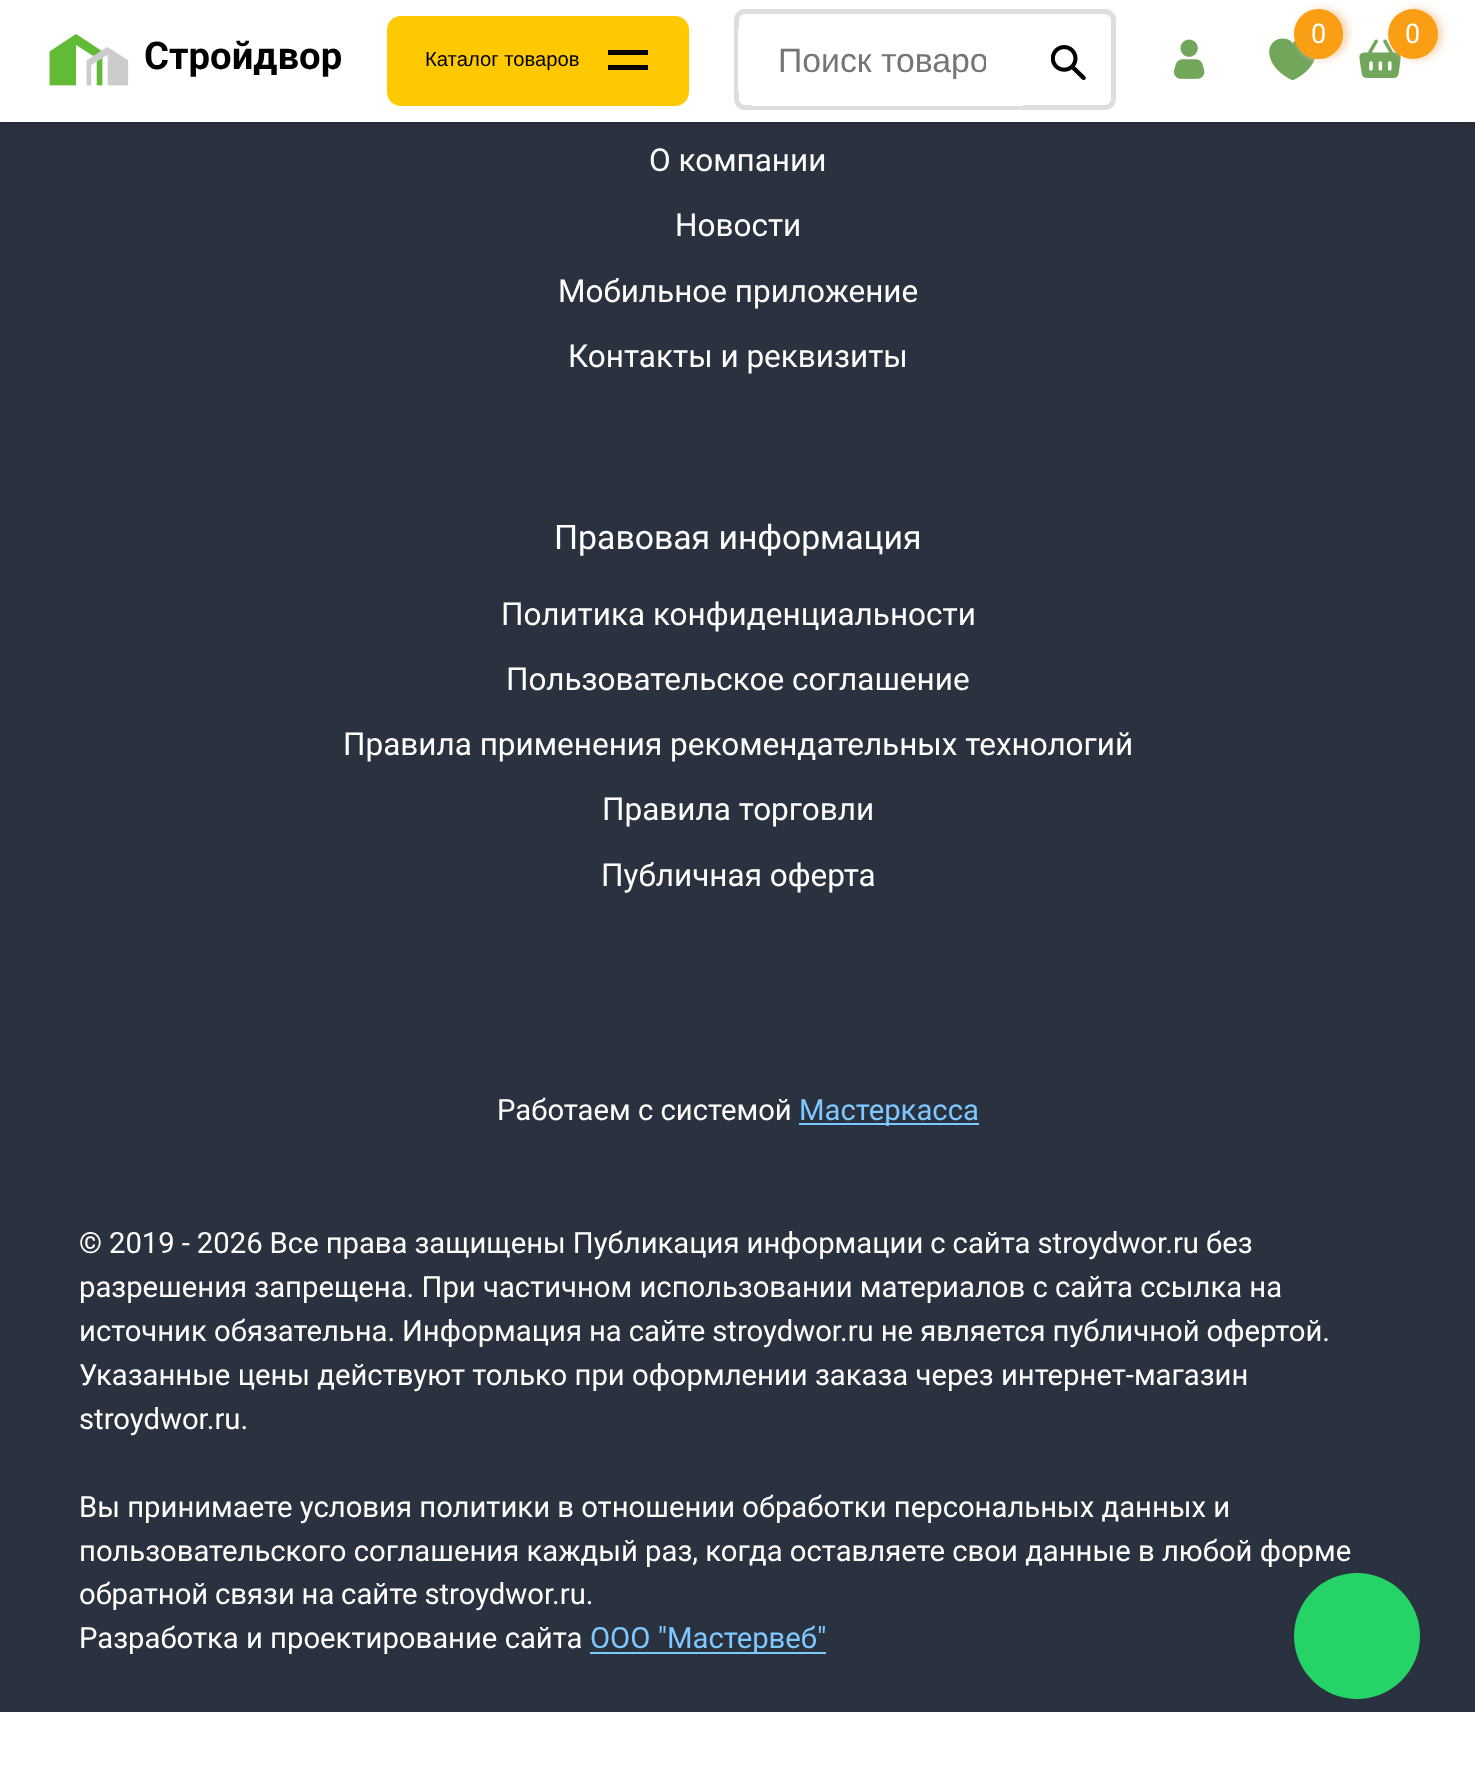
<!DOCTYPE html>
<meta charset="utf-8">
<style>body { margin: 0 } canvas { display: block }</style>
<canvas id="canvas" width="1475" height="1773"></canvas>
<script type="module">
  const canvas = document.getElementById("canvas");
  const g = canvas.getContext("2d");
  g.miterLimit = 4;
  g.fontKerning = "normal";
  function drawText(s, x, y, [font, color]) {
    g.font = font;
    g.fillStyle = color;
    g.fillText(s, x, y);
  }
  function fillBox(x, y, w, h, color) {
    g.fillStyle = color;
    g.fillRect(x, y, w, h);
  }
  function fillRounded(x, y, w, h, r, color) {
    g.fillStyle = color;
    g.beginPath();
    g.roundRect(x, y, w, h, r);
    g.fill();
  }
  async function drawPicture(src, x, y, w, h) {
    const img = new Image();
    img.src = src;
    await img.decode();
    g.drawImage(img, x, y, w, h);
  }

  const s1 = ["bold 38.25px Roboto", "#000000"];
  const s2 = ["20.25px Liberation Sans", "#000000"];
  const s3 = ["27px Roboto", "#FFFFFF"];
  const s4 = ["33.75px Liberation Sans", "#757575"];
  const s5 = ["31.5px Roboto", "#FFFFFF"];
  const s6 = ["33.75px Roboto", "#FFFFFF"];
  const s7 = ["29.25px Roboto", "#FFFFFF"];
  const s8 = ["29.25px Roboto", "#7FC8FF"];

  fillBox(0, 0, 1475, 1773, "#2B323F");
  g.fillStyle = "rgba(0, 0, 0, 0.21)";
  g.filter = "blur(5.5px)";
  g.beginPath();
  g.rect(0, 0, 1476, 122);
  g.fill();
  g.filter = "none";
  fillBox(0, 0, 1475, 122, "#FFFFFF");
  await drawPicture("pic1.png", 49, 33, 80, 53);
  drawText("Стройдвор", 144, 69, s1);
  fillRounded(387, 16, 302, 90, 14, "#FFC900");
  drawText("Каталог товаров", 425, 66, s2);
  fillBox(608, 50, 40, 5, "#000000");
  fillBox(608, 65, 40, 5, "#000000");
  await drawPicture("pic2.png", 1269, 38, 46, 43);
  g.fillStyle = "#F6D2AD";
  g.filter = "blur(4px)";
  g.beginPath();
  g.roundRect(1298, 9, 50, 50, 25);
  g.fill();
  g.filter = "none";
  fillRounded(1294, 9, 49, 50, 24.5, "#FA9E14");
  drawText("0", 1311, 43, s3);
  fillBox(1352, 21, 3, 26, "#FFFFFF");
  await drawPicture("pic3.png", 1359, 39, 42, 39);
  g.fillStyle = "#F6D2AD";
  g.filter = "blur(4px)";
  g.beginPath();
  g.roundRect(1393, 9, 49, 50, 24.5);
  g.fill();
  g.filter = "none";
  g.fillStyle = "#FA9E14";
  g.beginPath();
  g.arc(1413, 34, 25, 0, Math.PI * 2);
  g.fill();
  drawText("0", 1405, 43, s3);
  await drawPicture("pic4.png", 1173, 39, 32, 40);
  g.beginPath();
  g.roundRect(736.5, 11.5, 377, 96, 8.5);
  g.strokeStyle = "#DEDEDE";
  g.lineWidth = 5;
  g.stroke();
  g.beginPath();
  g.roundRect(740.5, 16.5, 283, 87, [15.5, 2.5, 2.5, 15.5]);
  g.fill();
  g.strokeStyle = "#FFFFFF";
  g.stroke();
  g.save();
  g.beginPath();
  g.rect(779, 41, 207, 38);
  g.clip();
  drawText("Поиск товаро", 778, 72, s4);
  g.restore();
  await drawPicture("pic5.png", 1051, 45, 35, 36);
  drawText("О компании", 649, 171, s5);
  drawText("Новости", 675, 236, s5);
  drawText("Мобильное приложение", 558, 302, s5);
  drawText("Контакты и реквизиты", 568, 367, s5);
  drawText("Правовая информация", 554, 549, s6);
  drawText("Политика конфиденциальности", 501, 625, s5);
  drawText("Пользовательское соглашение", 506, 690, s5);
  drawText("Правила применения рекомендательных технологий", 343, 755, s5);
  drawText("Правила торговли", 602, 820, s5);
  drawText("Публичная оферта", 601, 886, s5);
  drawText("Работаем с системой", 497, 1120, s7);
  fillBox(799, 1123, 180, 2, "#7FC8FF");
  drawText("Мастеркасса", 799, 1120, s8);
  g.wordSpacing = "-0.25px";
  drawText("© 2019 - 2026 Все права защищены Публикация информации с сайта stroydwor.ru без", 79, 1253, s7);
  g.wordSpacing = "0px";
  drawText("разрешения запрещена. При частичном использовании материалов с сайта ссылка на", 79, 1297, s7);
  drawText("источник обязательна.", 79, 1341, s7);
  g.wordSpacing = "-0.25px";
  drawText("Информация на сайте stroydwor.ru не является публичной офертой.", 402, 1341, s7);
  g.wordSpacing = "0px";
  drawText("Указанные цены действуют только при оформлении заказа через интернет-магазин", 79, 1385, s7);
  drawText("stroydwor.ru.", 79, 1429, s7);
  drawText("Вы принимаете условия политики в отношении обработки персональных данных и", 79, 1517, s7);
  drawText("пользовательского соглашения каждый раз, когда оставляете свои данные в любой форме", 79, 1561, s7);
  g.wordSpacing = "-0.5px";
  drawText("обратной связи на сайте stroydwor.ru.", 79, 1604, s7);
  g.wordSpacing = "0px";
  drawText("Разработка и проектирование сайта", 79, 1648, s7);
  fillBox(590, 1652, 236, 2, "#7FC8FF");
  drawText("ООО \"Мастервеб\"", 590, 1648, s8);
  g.fillStyle = "#25D366";
  g.beginPath();
  g.arc(1357, 1636, 63, 0, Math.PI * 2);
  g.fill();
  fillBox(0, 1712, 1475, 61, "#FFFFFF");
</script>
